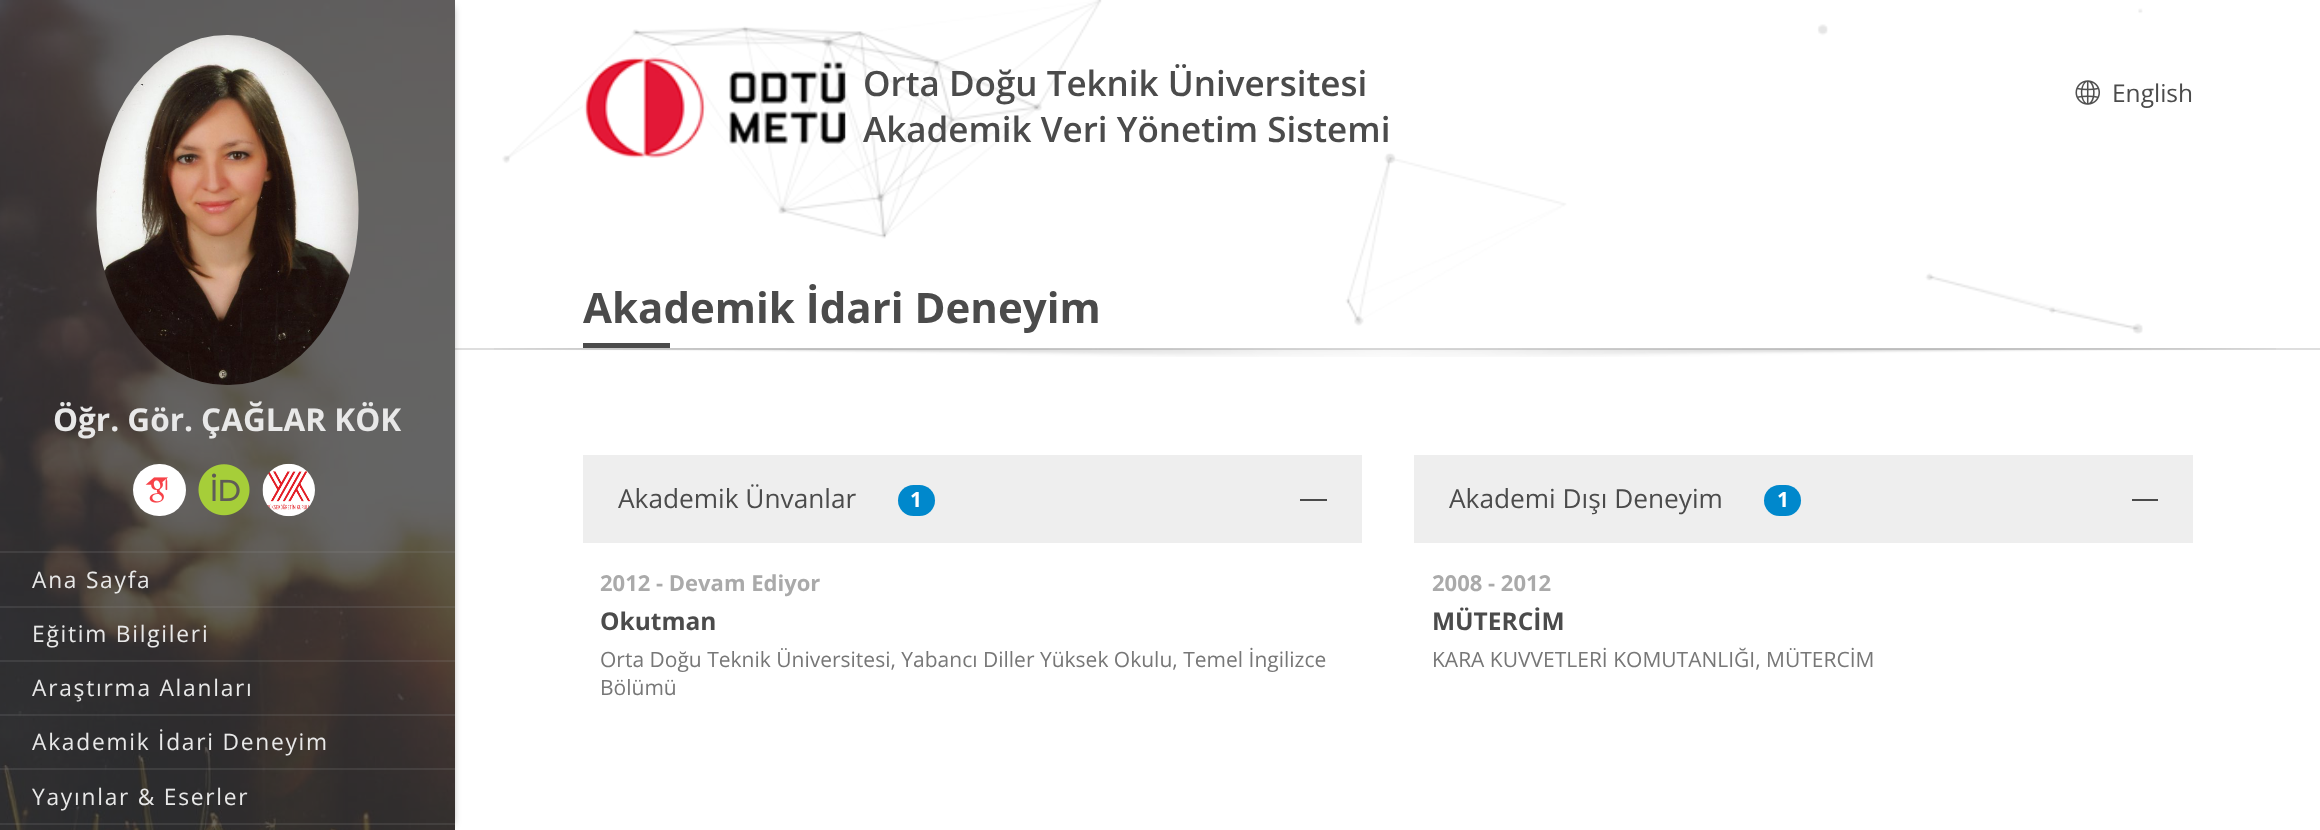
<!DOCTYPE html>
<meta charset="utf-8">
<style>body { margin: 0 } canvas { display: block }</style>
<canvas id="canvas" width="2320" height="830"></canvas>
<script type="module">
  const canvas = document.getElementById("canvas");
  const g = canvas.getContext("2d");
  g.miterLimit = 4;
  g.fontKerning = "normal";
  function drawText(s, x, y, [font, color]) {
    g.font = font;
    g.fillStyle = color;
    g.fillText(s, x, y);
  }
  function fillBox(x, y, w, h, color) {
    g.fillStyle = color;
    g.fillRect(x, y, w, h);
  }
  function fillRounded(x, y, w, h, r, color) {
    g.fillStyle = color;
    g.beginPath();
    g.roundRect(x, y, w, h, r);
    g.fill();
  }
  async function drawPicture(src, x, y, w, h) {
    const img = new Image();
    img.src = src;
    await img.decode();
    g.drawImage(img, x, y, w, h);
  }

  const s1 = ["600 35px Open Sans", "#4B4B4B"];
  const s2 = ["24.5px Open Sans", "#4B4B4B"];
  const s3 = ["bold 42px Open Sans", "#4B4B4B"];
  const s4 = ["bold 31.5px Open Sans", "#E8E8E8"];
  const s5 = ["22.75px Open Sans", "#E8E8E8"];
  const s6 = ["26.25px Open Sans", "#4B4B4B"];
  const s7 = ["bold 21px Open Sans", "#FFFFFF"];
  const s8 = ["bold 22px Open Sans", "#AAAAAA"];
  const s9 = ["bold 24.5px Open Sans", "#4B4B4B"];
  const s10 = ["21px Open Sans", "#777777"];

  fillBox(0, 0, 2320, 830, "#FFFFFF");
  fillBox(455, 348, 1865, 2, "#DEDEDE");
  await drawPicture("pic1.png", 502, 0, 1641, 334);
  await drawPicture("pic2.png", 583, 56, 263, 102);
  drawText("Orta Doğu Teknik Üniversitesi", 863, 96, s1);
  drawText("Akademik Veri Yönetim Sistemi", 863, 142, s1);
  await drawPicture("pic3.png", 2075, 80, 25, 25);
  drawText("English", 2112, 102, s2);
  drawText("Akademik İdari Deneyim", 583, 323, s3);
  fillBox(583, 343, 87, 5, "#4B4B4B");
  await drawPicture("pic4.png", 494, 348, 1782, 9);
  g.fillStyle = "rgba(0, 0, 0, 0.5)";
  g.filter = "blur(4.5px)";
  g.beginPath();
  g.rect(11, 7, 441, 817);
  g.fill();
  g.filter = "none";
  await drawPicture("pic5.png", 0, 0, 455, 830);
  await drawPicture("pic6.png", 96, 35, 263, 350);
  drawText("Öğr. Gör. ÇAĞLAR KÖK", 53, 431, s4);
  fillRounded(133, 464, 53, 52, 26, "#FFFFFF");
  await drawPicture("pic7.png", 145, 477, 23, 26);
  await drawPicture("pic8.png", 198, 464, 52, 52);
  await drawPicture("pic9.png", 262, 463, 53, 54);
  fillBox(0, 551, 455, 2, "rgba(146, 146, 146, 0.18)");
  fillBox(0, 606, 455, 2, "rgba(146, 146, 146, 0.18)");
  g.letterSpacing = "1.75px";
  drawText("Ana Sayfa", 32, 588, s5);
  fillBox(0, 660, 455, 2, "rgba(146, 146, 146, 0.18)");
  drawText("Eğitim Bilgileri", 32, 642, s5);
  fillBox(0, 714, 455, 2, "rgba(146, 146, 146, 0.18)");
  drawText("Araştırma Alanları", 32, 696, s5);
  fillBox(0, 768, 455, 2, "rgba(146, 146, 146, 0.18)");
  drawText("Akademik İdari Deneyim", 32, 750, s5);
  fillBox(0, 823, 455, 2, "rgba(146, 146, 146, 0.18)");
  drawText("Yayınlar & Eserler", 32, 805, s5);
  fillBox(583, 455, 779, 88, "#EEEEEE");
  g.letterSpacing = "0px";
  drawText("Akademik Ünvanlar", 618, 508, s6);
  fillRounded(898, 485, 37, 31, 15.5, "#0088CC");
  drawText("1", 910, 507, s7);
  fillBox(1300, 499, 27, 2, "#4B4B4B");
  drawText("2012 - Devam Ediyor", 600, 591, s8);
  drawText("Okutman", 600, 630, s9);
  drawText("Orta Doğu Teknik Üniversitesi, Yabancı Diller Yüksek Okulu, Temel İngilizce", 600, 667, s10);
  drawText("Bölümü", 600, 695, s10);
  fillBox(1414, 455, 779, 88, "#EEEEEE");
  drawText("Akademi Dışı Deneyim", 1449, 508, s6);
  fillRounded(1764, 485, 37, 31, 15.5, "#0088CC");
  drawText("1", 1777, 507, s7);
  fillBox(2132, 499, 26, 2, "#4B4B4B");
  drawText("2008 - 2012", 1432, 591, s8);
  drawText("MÜTERCİM", 1432, 630, s9);
  drawText("KARA KUVVETLERİ KOMUTANLIĞI, MÜTERCİM", 1432, 667, s10);
</script>
